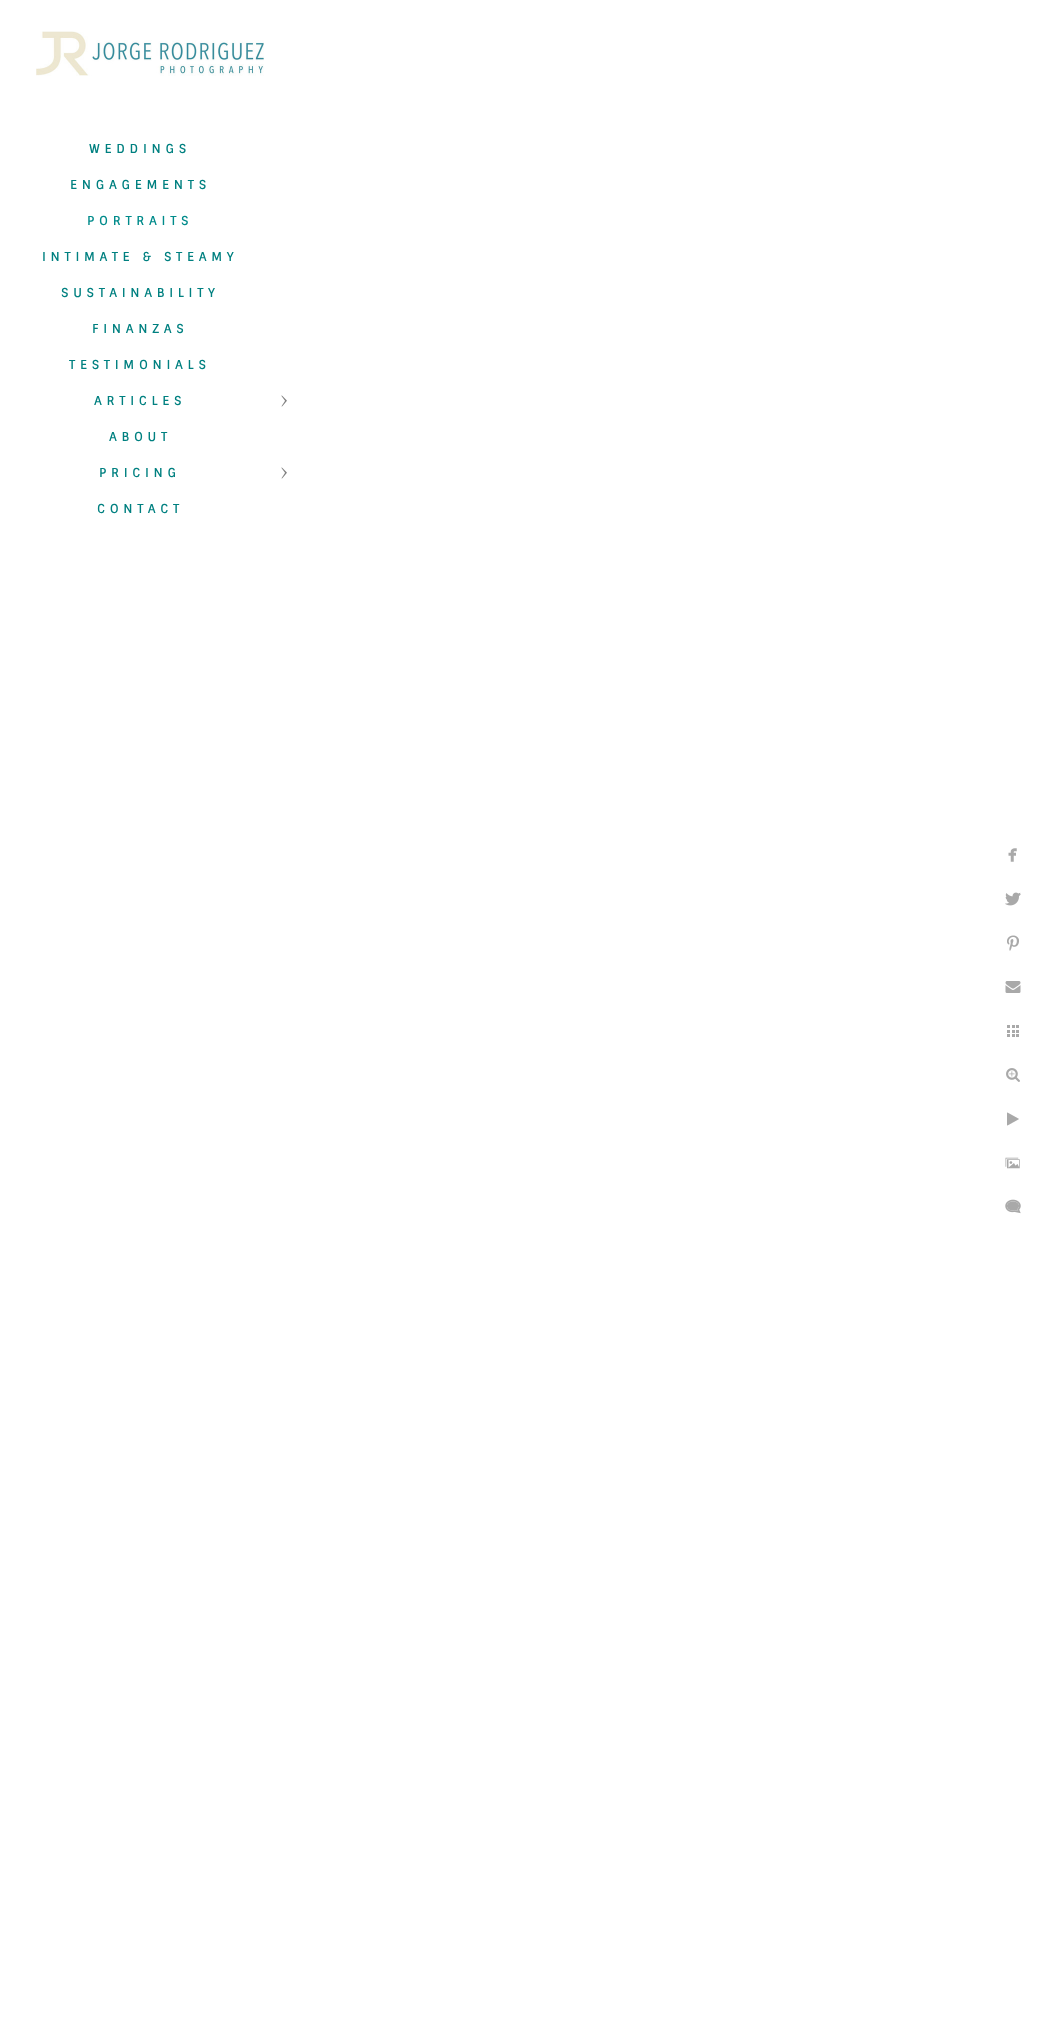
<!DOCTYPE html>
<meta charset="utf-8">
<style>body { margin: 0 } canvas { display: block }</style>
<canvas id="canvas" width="1040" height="2041"></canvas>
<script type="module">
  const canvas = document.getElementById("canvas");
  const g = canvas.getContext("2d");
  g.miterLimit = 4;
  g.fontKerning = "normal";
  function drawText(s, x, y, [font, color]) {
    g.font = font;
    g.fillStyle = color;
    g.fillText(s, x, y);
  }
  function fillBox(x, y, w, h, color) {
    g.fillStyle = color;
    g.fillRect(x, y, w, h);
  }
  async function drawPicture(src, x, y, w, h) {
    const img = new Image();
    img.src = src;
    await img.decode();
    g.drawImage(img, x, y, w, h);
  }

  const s1 = ["bold 12px Sintony", "#008080"];
  const s2 = ["bold 12px Sintony", "#008B8B"];

  fillBox(0, 0, 1040, 2041, "#FFFFFF");
  await drawPicture("pic1.png", 36, 31, 228, 45);
  g.letterSpacing = "5px";
  drawText("WEDDINGS", 89, 153, s1);
  drawText("ENGAGEMENTS", 70, 189, s1);
  drawText("PORTRAITS", 87, 225, s2);
  drawText("INTIMATE & STEAMY", 42, 261, s1);
  drawText("SUSTAINABILITY", 61, 297, s1);
  drawText("FINANZAS", 92, 333, s1);
  drawText("TESTIMONIALS", 69, 369, s1);
  drawText("ARTICLES", 94, 405, s1);
  await drawPicture("pic2.png", 281, 395, 6, 12);
  drawText("ABOUT", 109, 441, s1);
  drawText("PRICING", 99, 477, s1);
  await drawPicture("pic2.png", 281, 467, 6, 12);
  drawText("CONTACT", 97, 513, s1);
  await drawPicture("pic3.png", 1008, 848, 9, 14);
  await drawPicture("pic4.png", 1005, 892, 16, 14);
  await drawPicture("pic5.png", 1007, 935, 12, 16);
  await drawPicture("pic6.png", 1005, 981, 16, 12);
  await drawPicture("pic7.png", 1007, 1025, 12, 12);
  await drawPicture("pic8.png", 1006, 1068, 14, 14);
  await drawPicture("pic9.png", 1007, 1112, 12, 14);
  await drawPicture("pic10.png", 1005, 1157, 15, 12);
  await drawPicture("pic11.png", 1005, 1199, 16, 15);
</script>
